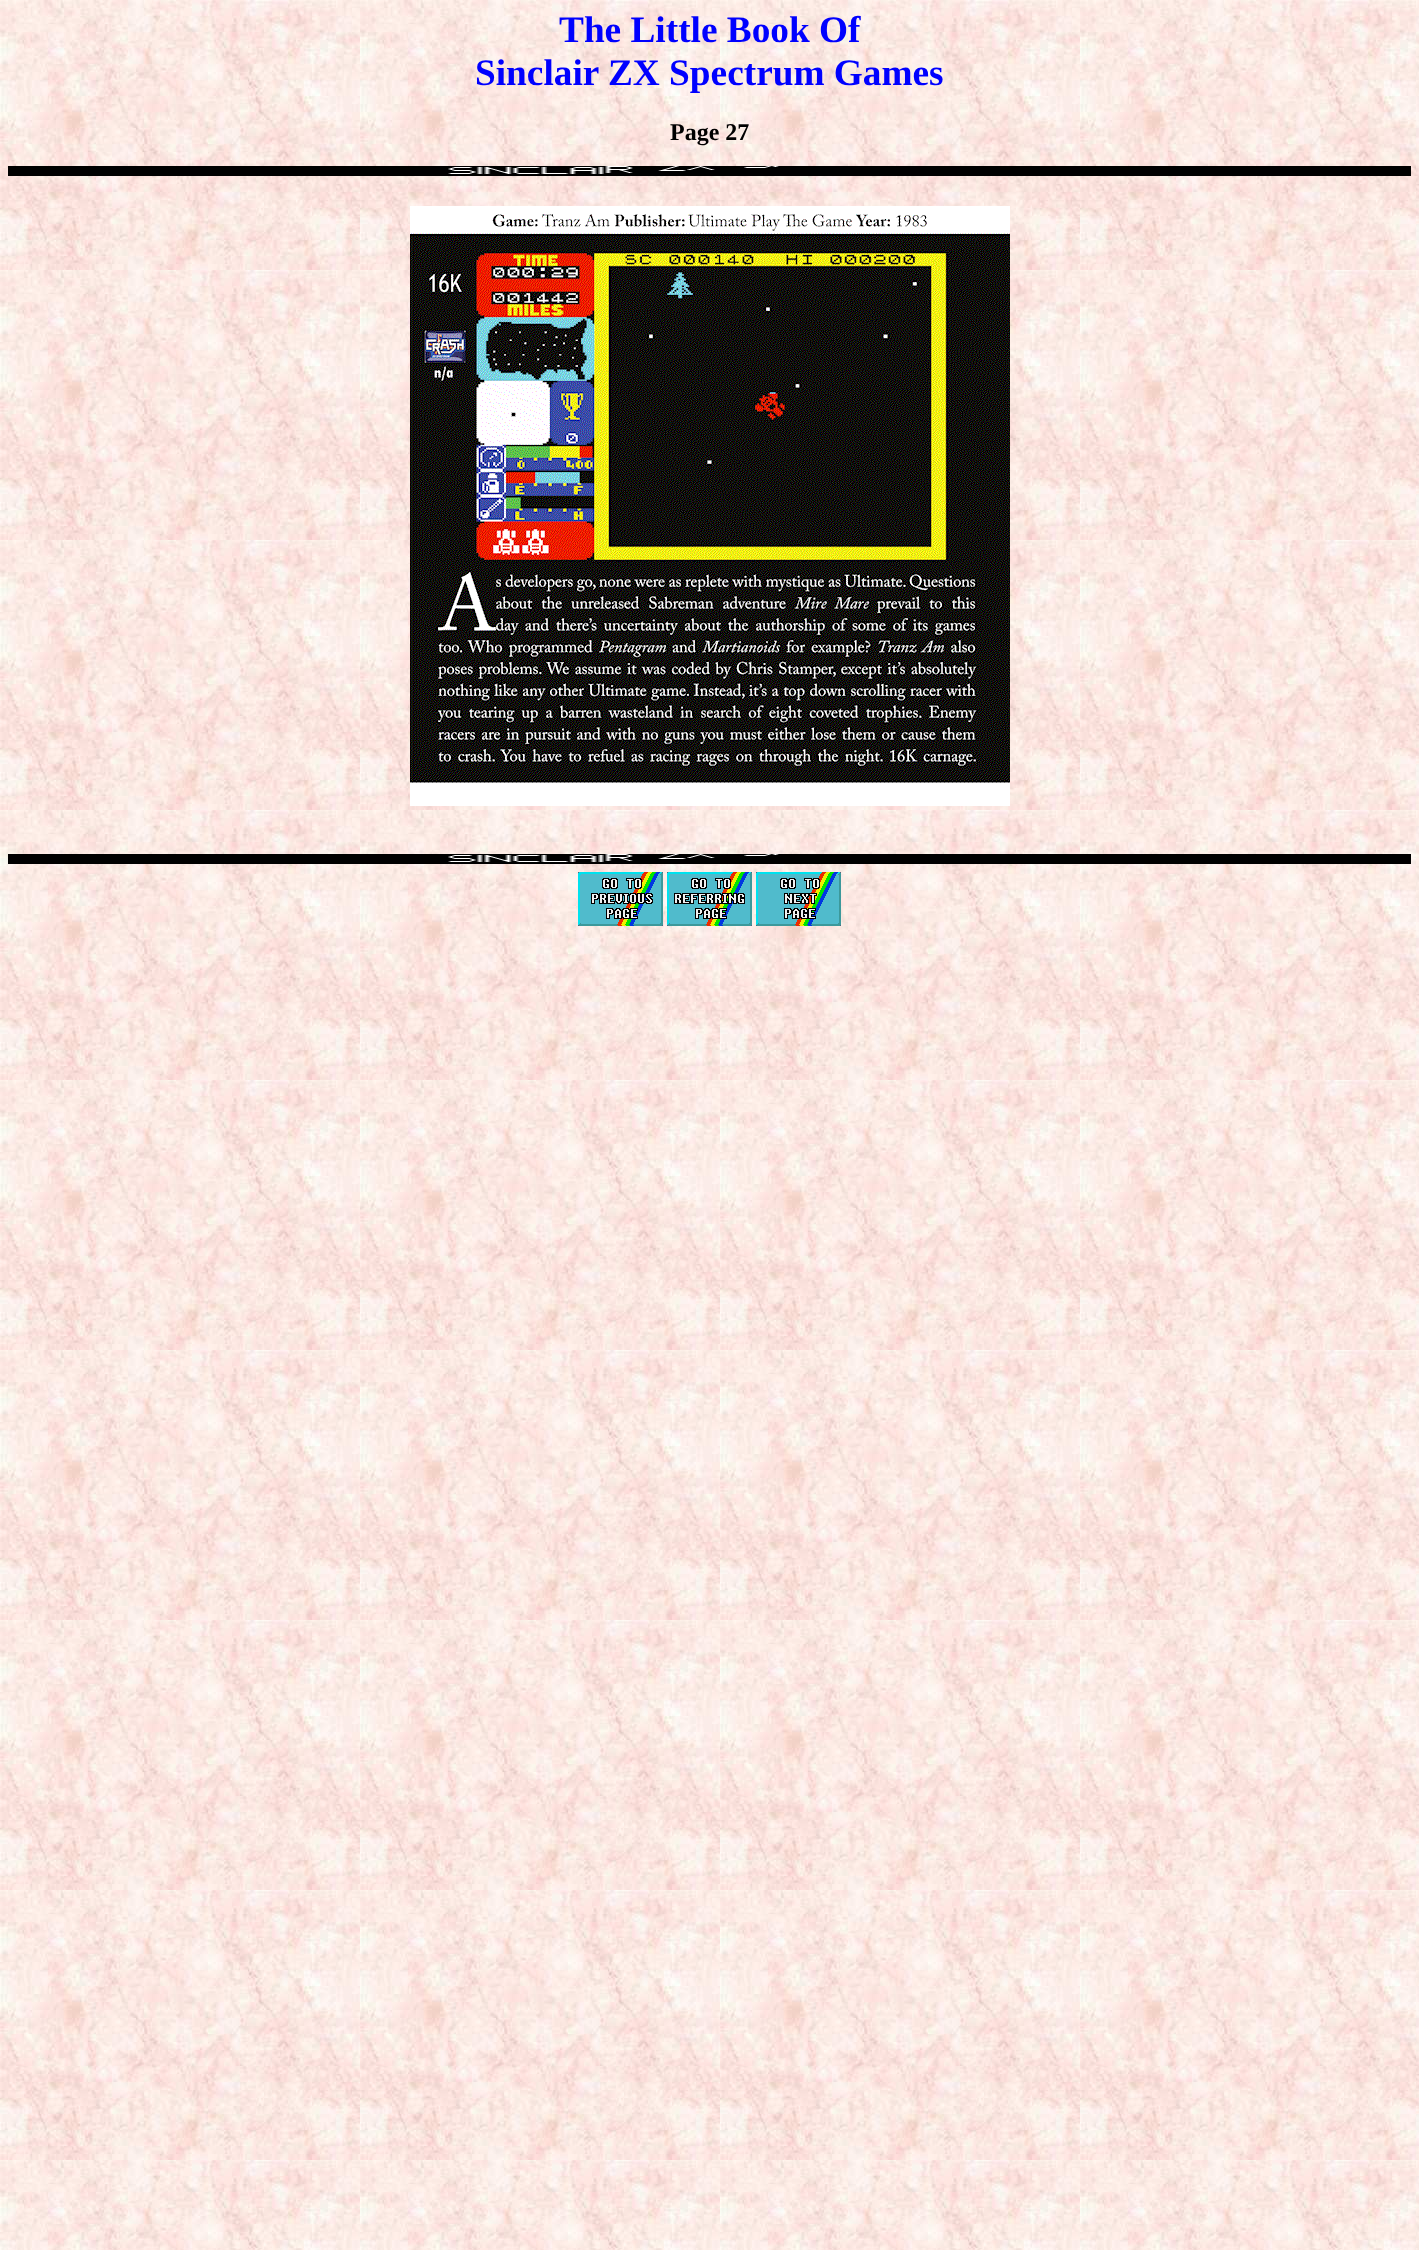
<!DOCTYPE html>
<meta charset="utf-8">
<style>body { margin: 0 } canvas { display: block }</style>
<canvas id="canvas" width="1419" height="2250"></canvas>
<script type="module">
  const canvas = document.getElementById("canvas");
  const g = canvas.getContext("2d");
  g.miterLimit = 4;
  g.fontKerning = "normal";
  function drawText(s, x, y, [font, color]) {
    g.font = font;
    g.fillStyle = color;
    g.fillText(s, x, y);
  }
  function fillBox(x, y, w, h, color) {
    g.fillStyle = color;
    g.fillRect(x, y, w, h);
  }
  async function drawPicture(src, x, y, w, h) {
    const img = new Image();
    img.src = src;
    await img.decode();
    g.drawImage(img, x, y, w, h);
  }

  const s1 = ["bold 37.3px Liberation Serif", "#0000FF"];
  const s2 = ["bold 24px Liberation Serif", "#000000"];

  fillBox(0, 0, 1419, 2250, "#FFFFFF");
  await drawPicture("pic1.png", 0, 0, 1419, 2250);
  drawText("The Little Book Of", 559, 42, s1);
  drawText("Sinclair ZX Spectrum Games", 475, 85, s1);
  drawText("Page 27", 670, 140, s2);
  await drawPicture("pic2.png", 8, 166, 1403, 10);
  await drawPicture("pic3.png", 410, 206, 600, 600);
  await drawPicture("pic2.png", 8, 854, 1403, 10);
  await drawPicture("pic4.png", 578, 872, 85, 54);
  await drawPicture("pic5.png", 667, 872, 85, 54);
  await drawPicture("pic6.png", 756, 872, 85, 54);
</script>
